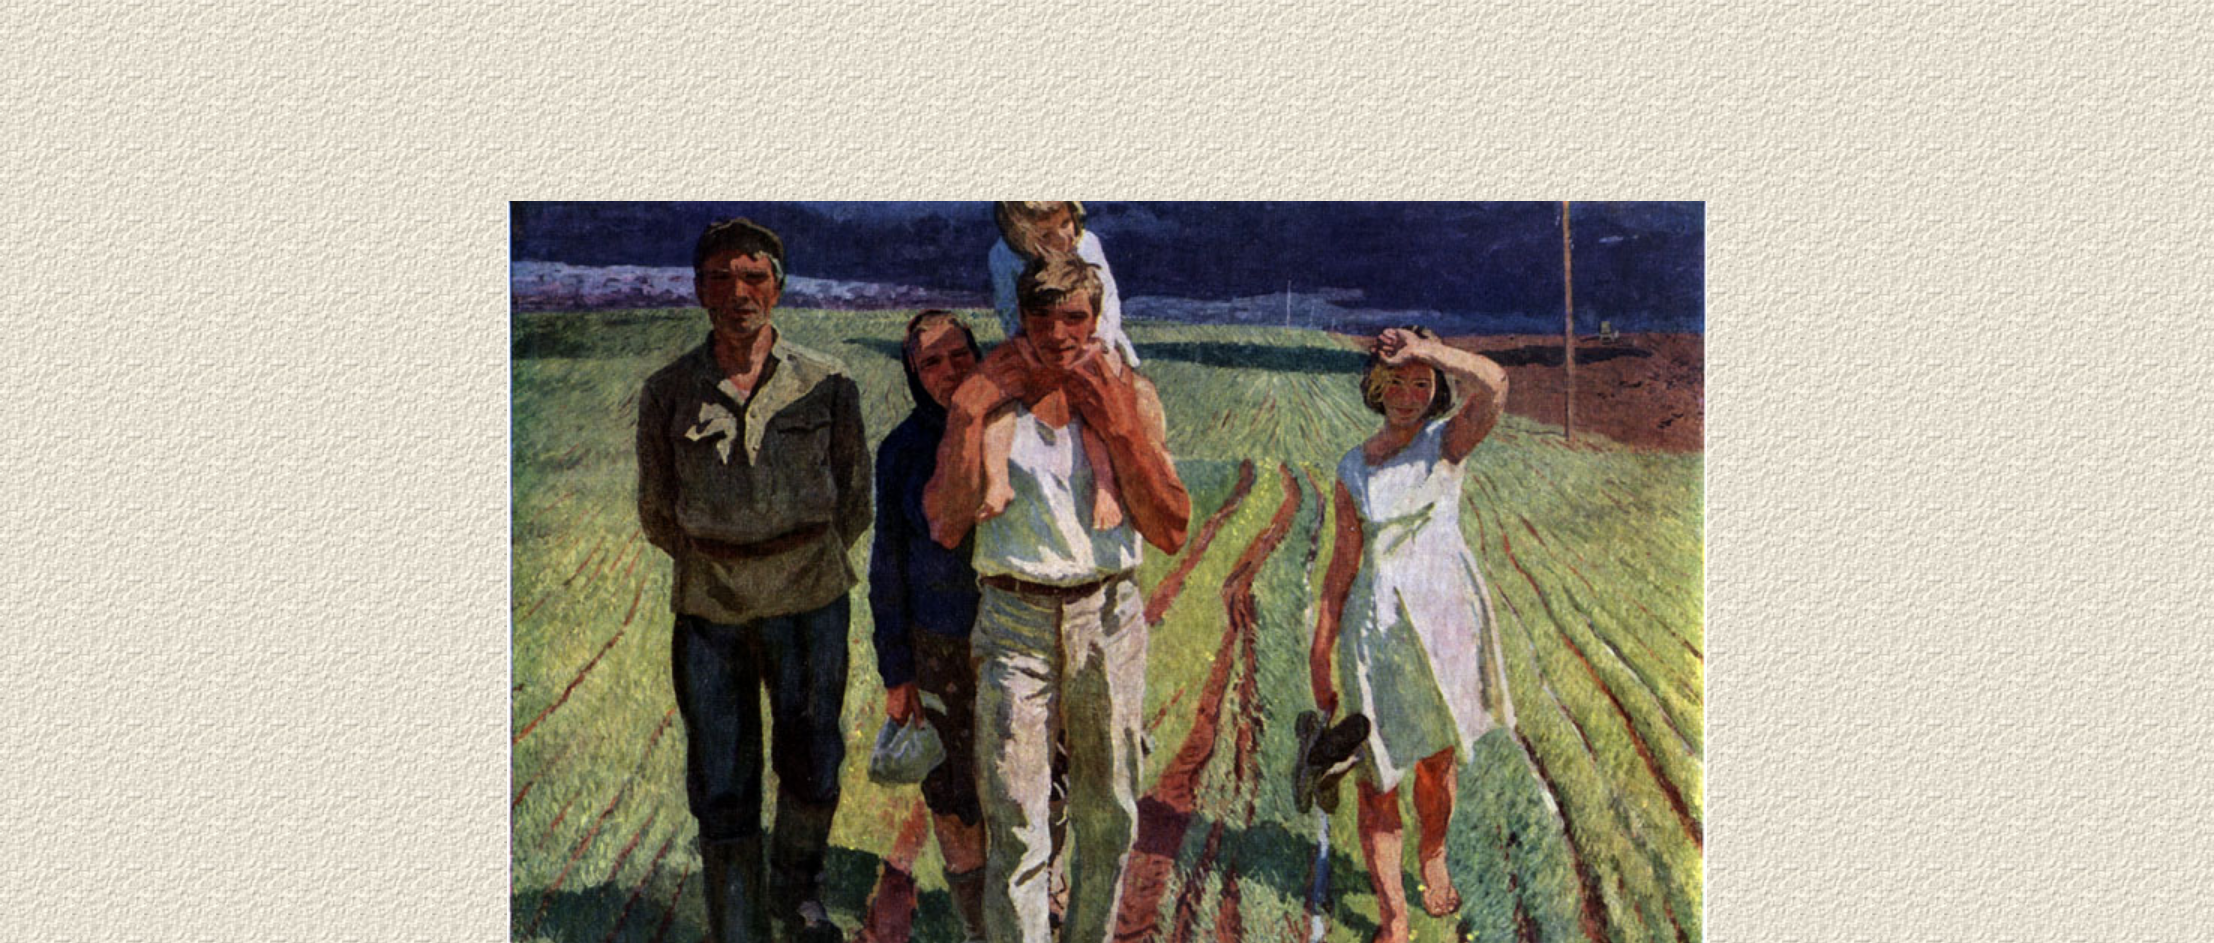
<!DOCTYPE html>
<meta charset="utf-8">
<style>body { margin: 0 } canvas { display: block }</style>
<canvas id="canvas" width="2214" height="943"></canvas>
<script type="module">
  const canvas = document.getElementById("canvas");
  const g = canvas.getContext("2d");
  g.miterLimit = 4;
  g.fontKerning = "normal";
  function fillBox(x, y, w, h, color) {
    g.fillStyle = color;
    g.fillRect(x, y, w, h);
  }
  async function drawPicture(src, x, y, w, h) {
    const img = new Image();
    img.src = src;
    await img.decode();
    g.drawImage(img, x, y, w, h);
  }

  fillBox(0, 0, 2214, 943, "#FFFFFF");
  await drawPicture("pic1.png", 0, 0, 2214, 943);
  await drawPicture("pic2.png", 507, 201, 1200, 742);
</script>
